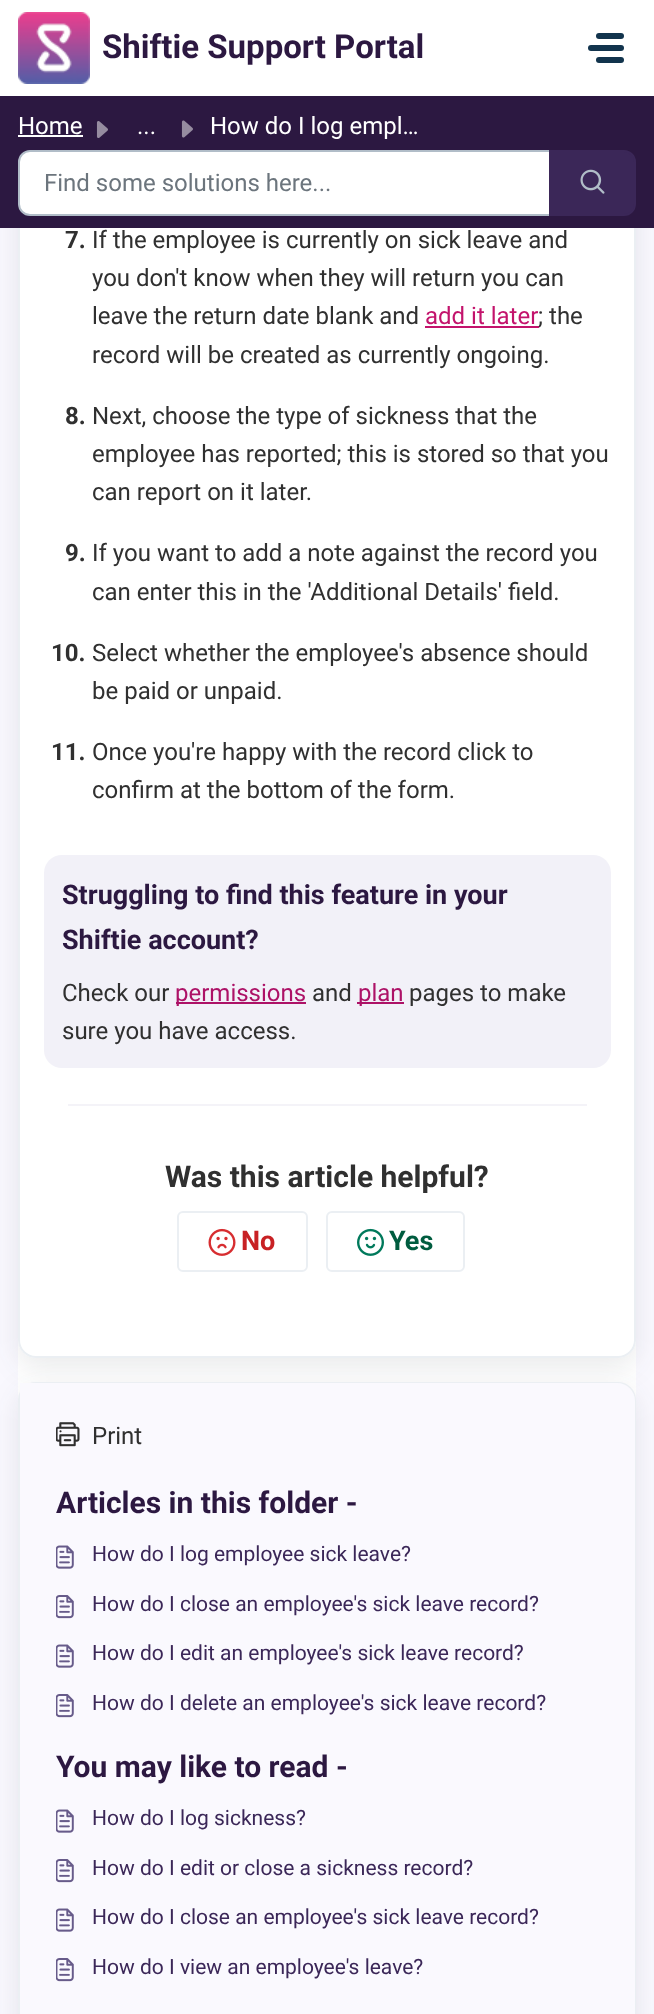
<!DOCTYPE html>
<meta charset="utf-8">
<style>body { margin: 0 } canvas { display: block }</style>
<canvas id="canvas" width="654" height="2014"></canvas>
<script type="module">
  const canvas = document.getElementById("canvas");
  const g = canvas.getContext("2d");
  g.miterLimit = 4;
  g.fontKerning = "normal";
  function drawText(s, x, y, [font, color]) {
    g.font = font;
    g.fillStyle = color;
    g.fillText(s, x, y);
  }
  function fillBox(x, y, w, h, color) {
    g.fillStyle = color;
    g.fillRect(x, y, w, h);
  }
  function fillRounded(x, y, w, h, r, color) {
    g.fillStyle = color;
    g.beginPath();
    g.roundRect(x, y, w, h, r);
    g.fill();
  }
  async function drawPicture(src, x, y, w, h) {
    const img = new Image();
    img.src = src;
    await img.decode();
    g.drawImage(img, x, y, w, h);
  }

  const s1 = ["bold 33px Roboto", "#2C1841"];
  const s2 = ["24px Roboto", "#FFFFFF"];
  const s3 = ["24px Roboto", "#6C757D"];
  const s4 = ["bold 24px Roboto", "#303030"];
  const s5 = ["24px Roboto", "#303030"];
  const s6 = ["24px Roboto", "#C3136C"];
  const s7 = ["bold 27px Roboto", "#2C1841"];
  const s8 = ["24px Roboto", "#AD1267"];
  const s9 = ["bold 30px Roboto", "#303030"];
  const s10 = ["bold 27px Roboto", "#C82124"];
  const s11 = ["bold 27px Roboto", "#005C3F"];
  const s12 = ["bold 30px Roboto", "#2C1841"];
  const s13 = ["21px Roboto", "#3B2758"];

  fillBox(0, 0, 654, 2014, "#F9F8FE");
  fillBox(18, 228, 618, 1172, "#FFFFFF");
  g.save();
  g.beginPath();
  g.moveTo(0, 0);
  g.lineTo(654, 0);
  g.lineTo(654, 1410);
  g.lineTo(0, 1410);
  g.closePath();
  g.moveTo(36, -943);
  g.lineTo(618, -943);
  g.bezierCurveTo(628, -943, 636, -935, 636, -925);
  g.lineTo(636, 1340);
  g.bezierCurveTo(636, 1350, 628, 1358, 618, 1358);
  g.lineTo(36, 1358);
  g.bezierCurveTo(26, 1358, 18, 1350, 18, 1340);
  g.lineTo(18, -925);
  g.bezierCurveTo(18, -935, 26, -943, 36, -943);
  g.closePath();
  g.clip("evenodd");
  g.fillStyle = "rgba(39, 49, 58, 0.1)";
  g.filter = "blur(14px)";
  g.beginPath();
  g.roundRect(18, -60, 618, 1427, 18);
  g.fill();
  g.filter = "none";
  g.restore();
  g.beginPath();
  g.roundRect(19, -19, 616, 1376, 17);
  g.strokeStyle = "#EBEFF3";
  g.lineWidth = 2;
  g.stroke();
  fillBox(0, 0, 654, 96, "#FFFFFF");
  await drawPicture("pic1.png", 18, 12, 72, 72);
  drawText("Shiftie Support Portal", 102, 58, s1);
  fillRounded(596, 33, 28, 6, 3, "#12344D");
  fillRounded(588, 45, 36, 6, 3, "#12344D");
  fillRounded(596, 57, 28, 6, 3, "#12344D");
  fillBox(0, 96, 654, 132, "#2C1841");
  drawText("Home", 18, 134, s2);
  fillBox(18, 135, 65, 2, "#FFFFFF");
  await drawPicture("pic2.png", 96, 121, 12, 17);
  drawText("...", 137, 134, s2);
  await drawPicture("pic3.png", 181, 120, 12, 18);
  drawText("How do I log empl…", 210, 134, s2);
  g.beginPath();
  g.roundRect(19, 151, 531, 64, [11, 0, 0, 11]);
  g.fill();
  g.strokeStyle = "#B1BDC8";
  g.stroke();
  drawText("Find some solutions here...", 44, 191, s3);
  g.fillStyle = "#3B2758";
  g.beginPath();
  g.roundRect(550, 151, 85, 64, [0, 11, 11, 0]);
  g.fill();
  g.strokeStyle = "#3B2758";
  g.stroke();
  await drawPicture("pic4.png", 580, 169, 25, 25);
  drawText("7.", 65, 248, s4);
  drawText("If the employee is currently on sick leave and", 92, 248, s5);
  drawText("you don't know when they will return you can", 92, 286, s5);
  drawText("leave the return date blank and", 92, 324, s5);
  drawText("add it later", 425, 324, s6);
  fillBox(425, 326, 114, 2, "#C3136C");
  drawText("; the", 538, 324, s5);
  drawText("record will be created as currently ongoing.", 92, 363, s5);
  drawText("8.", 65, 424, s4);
  drawText("Next, choose the type of sickness that the", 92, 424, s5);
  drawText("employee has reported; this is stored so that you", 92, 462, s5);
  drawText("can report on it later.", 92, 500, s5);
  drawText("9.", 65, 561, s4);
  drawText("If you want to add a note against the record you", 92, 561, s5);
  drawText("can enter this in the 'Additional Details' field.", 92, 600, s5);
  drawText("10.", 51, 661, s4);
  drawText("Select whether the employee's absence should", 92, 661, s5);
  drawText("be paid or unpaid.", 92, 699, s5);
  drawText("11.", 51, 760, s4);
  drawText("Once you're happy with the record click to", 92, 760, s5);
  drawText("confirm at the bottom of the form.", 92, 798, s5);
  fillRounded(44, 855, 567, 213, 18, "#F2F1F8");
  drawText("Struggling to find this feature in your", 62, 904, s7);
  drawText("Shiftie account?", 62, 949, s7);
  drawText("Check our", 62, 1001, s5);
  fillBox(176, 1002, 130, 2, "#AD1267");
  drawText("permissions", 175, 1001, s8);
  drawText("and", 312, 1001, s5);
  fillBox(357, 1002, 47, 2, "#AD1267");
  drawText("plan", 358, 1001, s8);
  drawText("pages to make", 409, 1001, s5);
  drawText("sure you have access.", 62, 1039, s5);
  fillBox(68, 1104, 519, 2, "#F4F3F8");
  drawText("Was this article helpful?", 165, 1187, s9);
  g.beginPath();
  g.roundRect(178, 1212, 129, 59, 5);
  g.strokeStyle = "#EBEFF3";
  g.stroke();
  await drawPicture("pic5.png", 208, 1228, 28, 28);
  drawText("No", 241, 1250, s10);
  g.beginPath();
  g.roundRect(327, 1212, 137, 59, 5);
  g.stroke();
  await drawPicture("pic6.png", 357, 1228, 27, 28);
  drawText("Yes", 389, 1250, s11);
  g.fillStyle = "rgba(39, 49, 58, 0.1)";
  g.filter = "blur(14px)";
  g.beginPath();
  g.roundRect(18, 1391, 618, 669, 18);
  g.fill();
  g.filter = "none";
  g.beginPath();
  g.roundRect(19, 1383, 616, 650, 17);
  g.stroke();
  g.fillStyle = "#FAF9FE";
  g.beginPath();
  g.moveTo(20, 1383);
  g.lineTo(617, 1383);
  g.bezierCurveTo(627, 1383, 635, 1391, 635, 1401);
  g.lineTo(635, 2014);
  g.bezierCurveTo(635, 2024, 627, 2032, 617, 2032);
  g.lineTo(20, 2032);
  g.closePath();
  g.fill();
  await drawPicture("pic7.png", 56, 1422, 24, 25);
  drawText("Print", 92, 1444, s5);
  drawText("Articles in this folder -", 56, 1513, s12);
  await drawPicture("pic8.png", 56, 1545, 18, 24);
  drawText("How do I log employee sick leave?", 92, 1561, s13);
  await drawPicture("pic9.png", 56, 1595, 18, 24);
  drawText("How do I close an employee's sick leave record?", 92, 1611, s13);
  await drawPicture("pic8.png", 56, 1644, 18, 24);
  drawText("How do I edit an employee's sick leave record?", 92, 1660, s13);
  await drawPicture("pic9.png", 56, 1694, 18, 24);
  drawText("How do I delete an employee's sick leave record?", 92, 1710, s13);
  drawText("You may like to read -", 56, 1777, s12);
  await drawPicture("pic8.png", 56, 1809, 18, 24);
  drawText("How do I log sickness?", 92, 1825, s13);
  await drawPicture("pic9.png", 56, 1859, 18, 24);
  drawText("How do I edit or close a sickness record?", 92, 1875, s13);
  await drawPicture("pic8.png", 56, 1908, 18, 24);
  drawText("How do I close an employee's sick leave record?", 92, 1924, s13);
  await drawPicture("pic9.png", 56, 1958, 18, 24);
  drawText("How do I view an employee's leave?", 92, 1974, s13);
</script>
